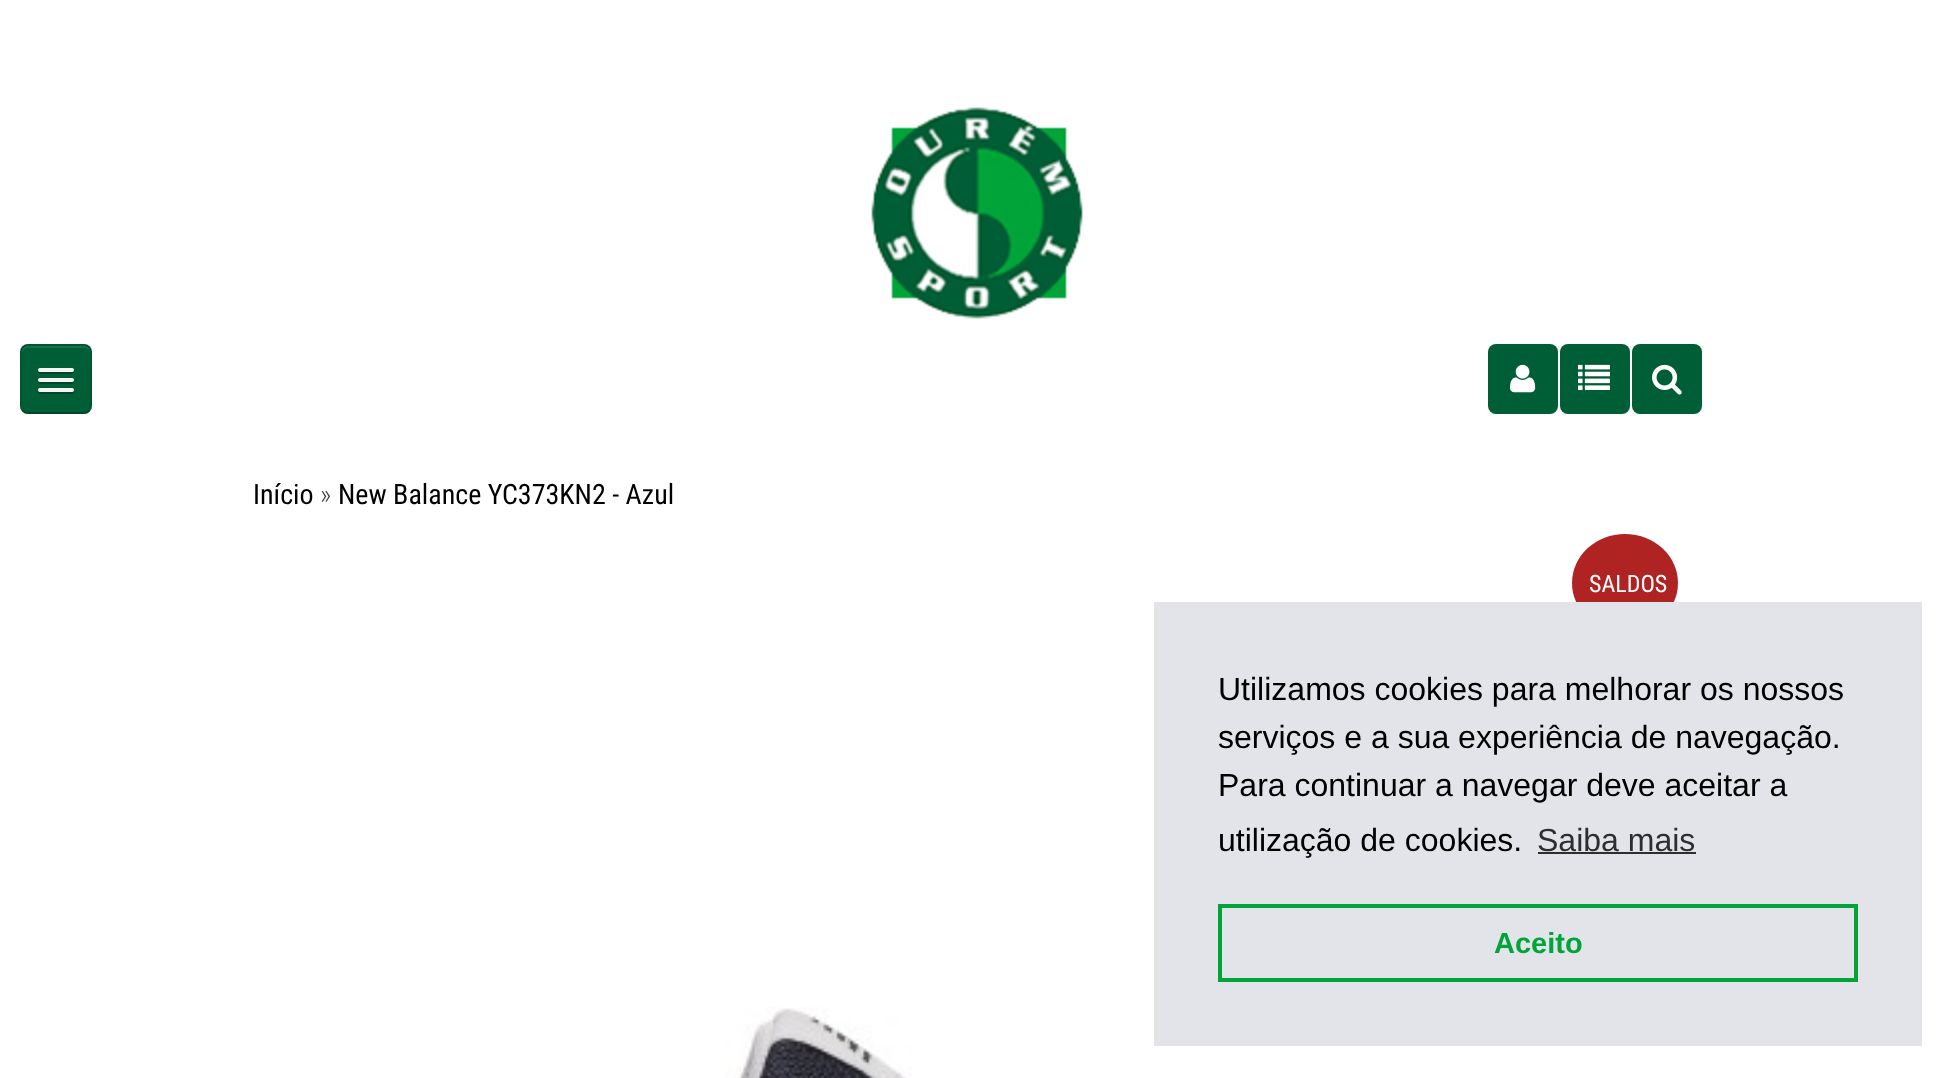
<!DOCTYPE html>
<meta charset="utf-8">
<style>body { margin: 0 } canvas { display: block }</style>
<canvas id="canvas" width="1953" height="1078"></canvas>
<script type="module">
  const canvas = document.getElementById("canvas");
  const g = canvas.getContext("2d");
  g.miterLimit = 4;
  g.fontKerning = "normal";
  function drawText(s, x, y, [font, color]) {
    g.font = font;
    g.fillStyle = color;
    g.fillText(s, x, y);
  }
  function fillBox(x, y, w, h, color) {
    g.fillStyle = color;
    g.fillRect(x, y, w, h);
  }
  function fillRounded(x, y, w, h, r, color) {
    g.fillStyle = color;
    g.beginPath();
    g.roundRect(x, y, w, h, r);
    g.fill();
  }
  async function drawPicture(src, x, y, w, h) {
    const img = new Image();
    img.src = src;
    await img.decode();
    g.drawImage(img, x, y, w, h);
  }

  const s1 = ["28px Roboto Condensed", "#000000"];
  const s2 = ["300 28px Roboto Condensed", "#404247"];
  const s3 = ["24px Roboto Condensed", "#FFFFFF"];
  const s4 = ["32px Liberation Sans", "#000000"];
  const s5 = ["32px Liberation Sans", "#2D2E2F"];
  const s6 = ["bold 29px Liberation Sans", "#00A438"];

  fillBox(0, 0, 1953, 1078, "#FFFFFF");
  fillRounded(20, 344, 72, 70, 8, "#005E36");
  g.fillStyle = "#1A6E4A";
  g.beginPath();
  g.moveTo(28, 348);
  g.lineTo(84, 348);
  g.bezierCurveTo(87, 348, 90, 351, 90, 354);
  g.bezierCurveTo(90, 344, 83, 346, 75, 346);
  g.lineTo(37, 346);
  g.bezierCurveTo(29, 346, 22, 344, 22, 354);
  g.bezierCurveTo(22, 351, 25, 348, 28, 348);
  g.closePath();
  g.fill();
  g.beginPath();
  g.moveTo(89, 411);
  g.bezierCurveTo(87.5, 412.5, 86, 413, 84, 413);
  g.lineTo(28, 413);
  g.bezierCurveTo(26, 413, 24.5, 412.5, 23, 411);
  g.strokeStyle = "rgba(0, 0, 0, 0.25)";
  g.lineWidth = 2;
  g.stroke();
  g.beginPath();
  g.moveTo(23, 411);
  g.bezierCurveTo(19.5, 407.5, 21, 401, 21, 397);
  g.lineTo(21, 379);
  g.bezierCurveTo(21, 338.5, 15, 345, 56, 345);
  g.bezierCurveTo(97, 345, 91, 338.5, 91, 379);
  g.lineTo(91, 397);
  g.bezierCurveTo(91, 401, 92.5, 407.5, 89, 411);
  g.strokeStyle = "rgba(0, 0, 0, 0.1)";
  g.stroke();
  g.fillStyle = "#004729";
  g.beginPath();
  g.moveTo(38.5, 371);
  g.bezierCurveTo(36, 375, 45, 374, 45.5, 374);
  g.lineTo(66.5, 374);
  g.bezierCurveTo(67, 374, 76, 375, 73.5, 371);
  g.bezierCurveTo(73.5, 371.5, 72.5, 372, 72, 372);
  g.lineTo(40, 372);
  g.bezierCurveTo(39.5, 372, 38.5, 371.5, 38.5, 371);
  g.closePath();
  g.fill();
  fillRounded(38, 368, 36, 4, 2, "#F5F5F5");
  g.fillStyle = "#004729";
  g.beginPath();
  g.moveTo(38.5, 381);
  g.bezierCurveTo(36, 385, 45, 384, 45.5, 384);
  g.lineTo(66.5, 384);
  g.bezierCurveTo(67, 384, 76, 385, 73.5, 381);
  g.bezierCurveTo(73.5, 381.5, 72.5, 382, 72, 382);
  g.lineTo(40, 382);
  g.bezierCurveTo(39.5, 382, 38.5, 381.5, 38.5, 381);
  g.closePath();
  g.fill();
  fillRounded(38, 378, 36, 4, 2, "#F5F5F5");
  g.fillStyle = "#004729";
  g.beginPath();
  g.moveTo(38.5, 391);
  g.bezierCurveTo(36, 395, 45, 394, 45.5, 394);
  g.lineTo(66.5, 394);
  g.bezierCurveTo(67, 394, 76, 395, 73.5, 391);
  g.bezierCurveTo(73.5, 391.5, 72.5, 392, 72, 392);
  g.lineTo(40, 392);
  g.bezierCurveTo(39.5, 392, 38.5, 391.5, 38.5, 391);
  g.closePath();
  g.fill();
  fillRounded(38, 388, 36, 4, 2, "#F5F5F5");
  await drawPicture("pic1.png", 871, 107, 212, 212);
  fillRounded(1488, 344, 70, 70, 8, "#005E36");
  await drawPicture("pic2.png", 1510, 364, 26, 29);
  fillRounded(1560, 344, 70, 70, 8, "#005E36");
  await drawPicture("pic3.png", 1578, 364, 32, 26);
  fillRounded(1632, 344, 70, 70, 8, "#005E36");
  await drawPicture("pic4.png", 1652, 364, 30, 31);
  drawText("Início", 253, 504, s1);
  drawText("»", 320, 504, s2);
  drawText("New Balance YC373KN2 - Azul", 338, 504, s1);
  g.fillStyle = "#B02323";
  g.beginPath();
  g.ellipse(1625, 583, 53, 49, 0, 0, Math.PI * 2);
  g.fill();
  drawText("SALDOS", 1589, 592, s3);
  await drawPicture("pic5.png", 726, 1007, 186, 71);
  fillBox(1154, 602, 768, 444, "#E3E4E9");
  drawText("Utilizamos cookies para melhorar os nossos", 1218, 700, s4);
  drawText("serviços e a sua experiência de navegação.", 1218, 748, s4);
  drawText("Para continuar a navegar deve aceitar a", 1218, 796, s4);
  drawText("utilização de cookies.", 1218, 851, s4);
  drawText("Saiba mais", 1537, 851, s5);
  fillBox(1538, 852, 158, 2, "#2D2E2F");
  g.strokeStyle = "#00A438";
  g.lineWidth = 4;
  g.strokeRect(1220, 906, 636, 74);
  drawText("Aceito", 1494, 953, s6);
</script>
